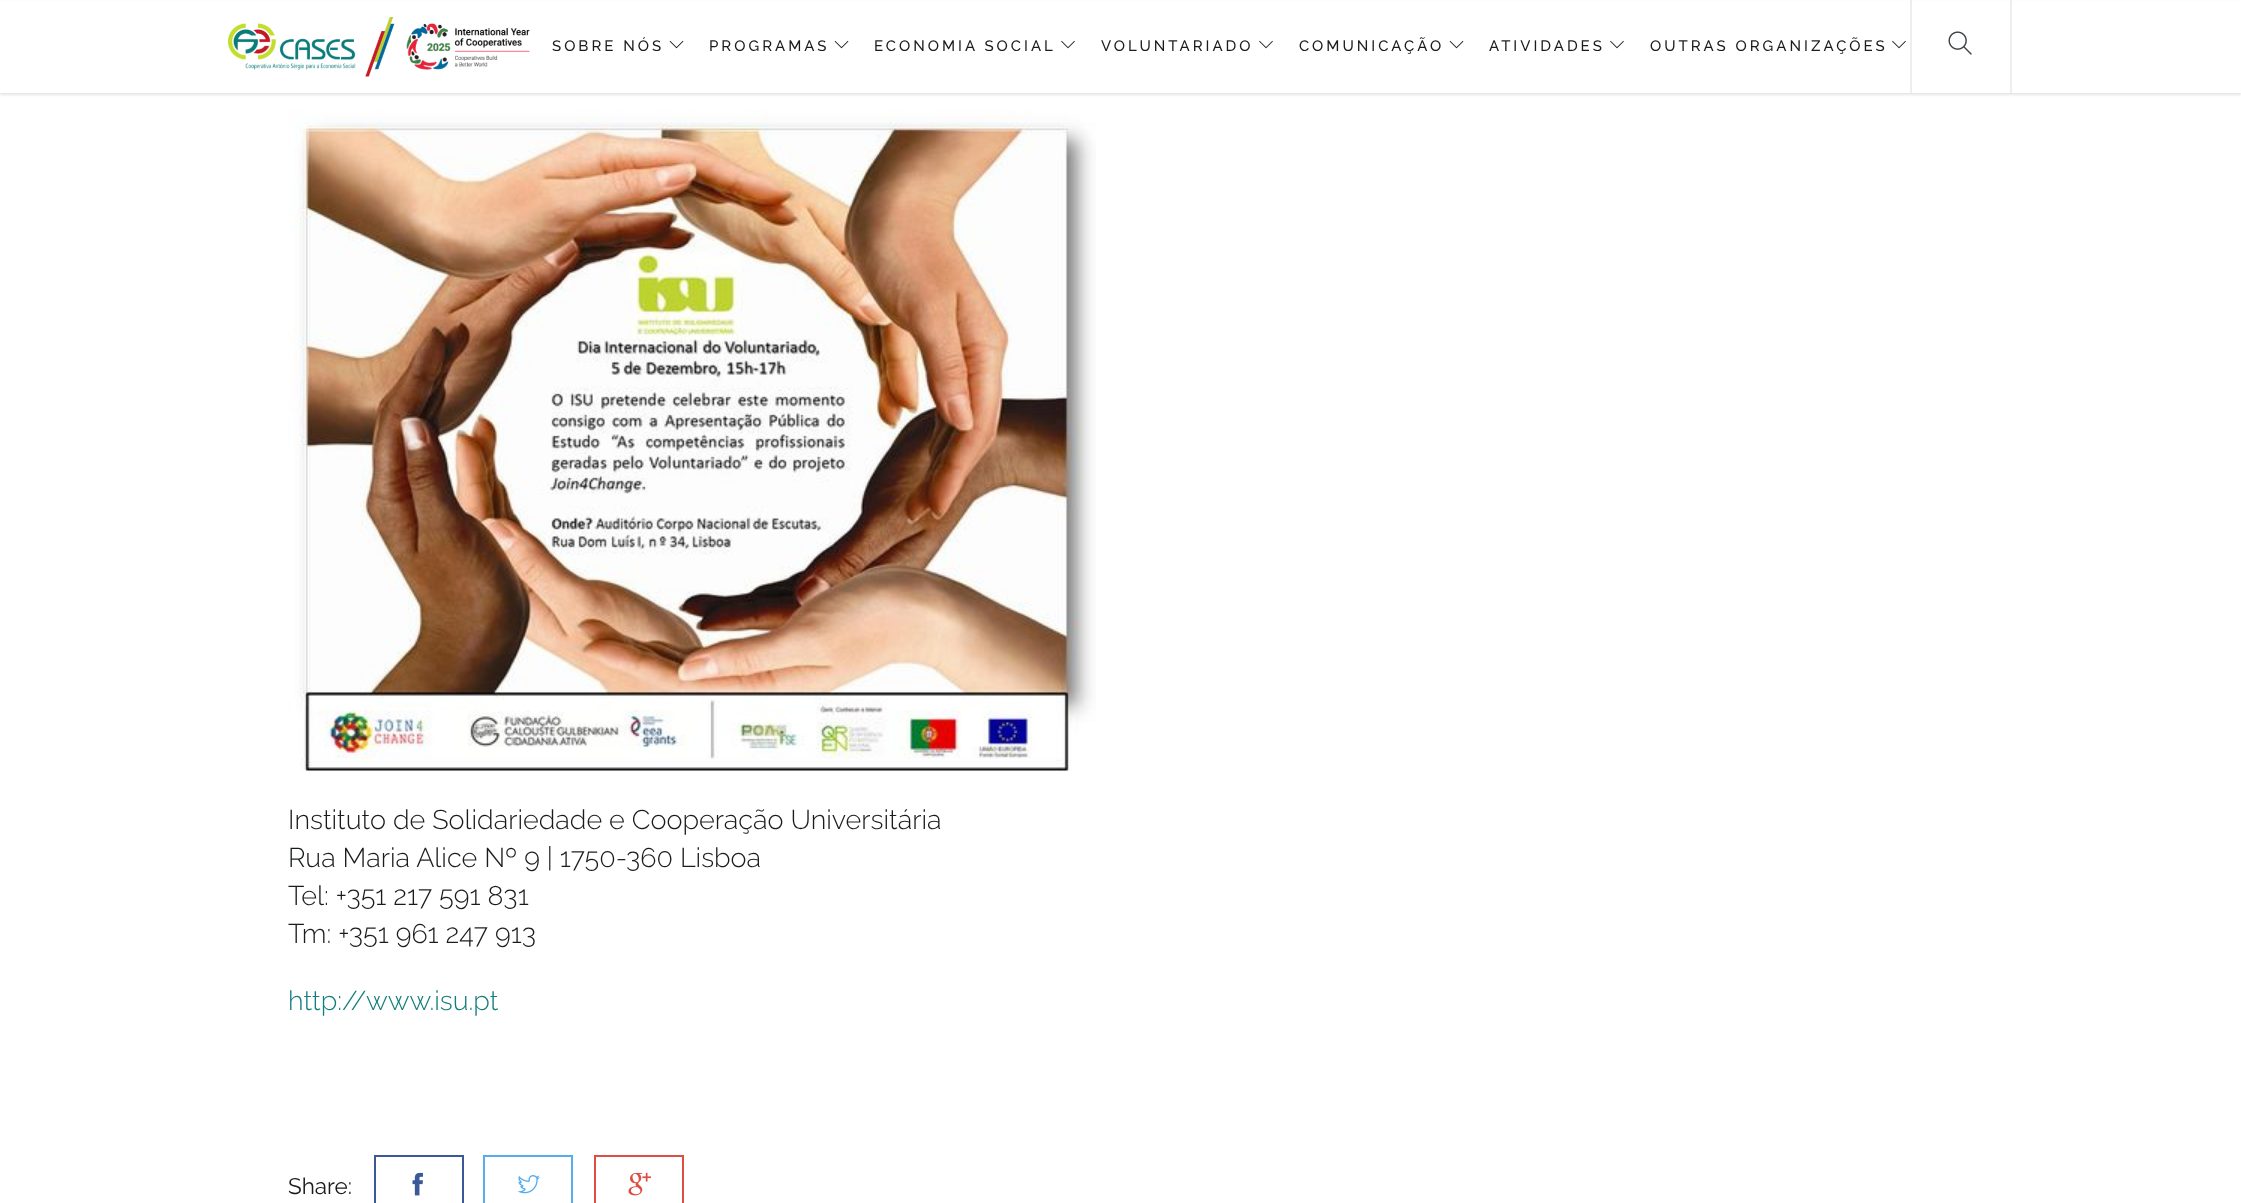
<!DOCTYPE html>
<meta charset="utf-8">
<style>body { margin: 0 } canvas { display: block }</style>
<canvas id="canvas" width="2241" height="1203"></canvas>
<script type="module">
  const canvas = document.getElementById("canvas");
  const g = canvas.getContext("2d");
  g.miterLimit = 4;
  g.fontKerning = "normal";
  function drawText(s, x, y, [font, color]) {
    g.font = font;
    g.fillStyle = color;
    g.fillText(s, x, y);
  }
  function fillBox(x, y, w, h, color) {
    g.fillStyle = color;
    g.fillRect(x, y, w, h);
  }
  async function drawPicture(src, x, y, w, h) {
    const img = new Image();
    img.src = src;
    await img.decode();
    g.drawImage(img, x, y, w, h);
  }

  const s1 = ["500 15px Raleway", "#191B1D"];
  const s2 = ["300 27px Raleway", "#191B1D"];
  const s3 = ["300 27px Raleway", "#127E7A"];
  const s4 = ["100 22.5px Raleway", "#191B1D"];

  fillBox(0, 0, 2241, 1203, "#FFFFFF");
  g.fillStyle = "rgba(0, 0, 0, 0.1)";
  g.filter = "blur(1px)";
  g.beginPath();
  g.rect(0, 2, 2241, 93);
  g.fill();
  g.filter = "none";
  fillBox(0, 1, 2241, 92, "#FFFFFF");
  await drawPicture("pic1.png", 227, 17, 303, 60);
  g.letterSpacing = "3px";
  drawText("SOBRE NÓS", 552, 51, s1);
  await drawPicture("pic2.png", 669, 40, 15, 9);
  drawText("PROGRAMAS", 709, 51, s1);
  await drawPicture("pic2.png", 834, 40, 15, 9);
  drawText("ECONOMIA SOCIAL", 874, 51, s1);
  await drawPicture("pic3.png", 1061, 40, 14, 9);
  drawText("VOLUNTARIADO", 1101, 51, s1);
  await drawPicture("pic3.png", 1259, 40, 14, 9);
  drawText("COMUNICAÇÃO", 1299, 51, s1);
  await drawPicture("pic2.png", 1449, 40, 15, 9);
  drawText("ATIVIDADES", 1489, 51, s1);
  await drawPicture("pic3.png", 1610, 40, 14, 9);
  drawText("OUTRAS ORGANIZAÇÕES", 1650, 51, s1);
  await drawPicture("pic3.png", 1892, 40, 14, 9);
  fillBox(2010, 0, 2, 93, "#EEEEEE");
  fillBox(1910, 0, 2, 93, "#EEEEEE");
  await drawPicture("pic4.png", 1948, 31, 24, 24);
  await drawPicture("pic5.png", 288, 110, 808, 661);
  g.letterSpacing = "0px";
  drawText("Instituto de Solidariedade e Cooperação Universitária", 288, 829, s2);
  drawText("Rua Maria Alice Nº 9 | 1750-360 Lisboa", 288, 867, s2);
  drawText("Tel: +351 217 591 831", 288, 905, s2);
  drawText("Tm: +351 961 247 913", 288, 943, s2);
  drawText("http://www.isu.pt", 288, 1010, s3);
  drawText("Share:", 288, 1194, s4);
  g.strokeStyle = "#3B5998";
  g.lineWidth = 2;
  g.strokeRect(375, 1156, 88, 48);
  await drawPicture("pic6.png", 412, 1172, 11, 24);
  g.strokeStyle = "#55ACEE";
  g.strokeRect(484, 1156, 88, 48);
  await drawPicture("pic7.png", 517, 1175, 23, 19);
  g.strokeStyle = "#DC4E41";
  g.strokeRect(595, 1156, 88, 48);
  await drawPicture("pic8.png", 628, 1172, 23, 24);
</script>
